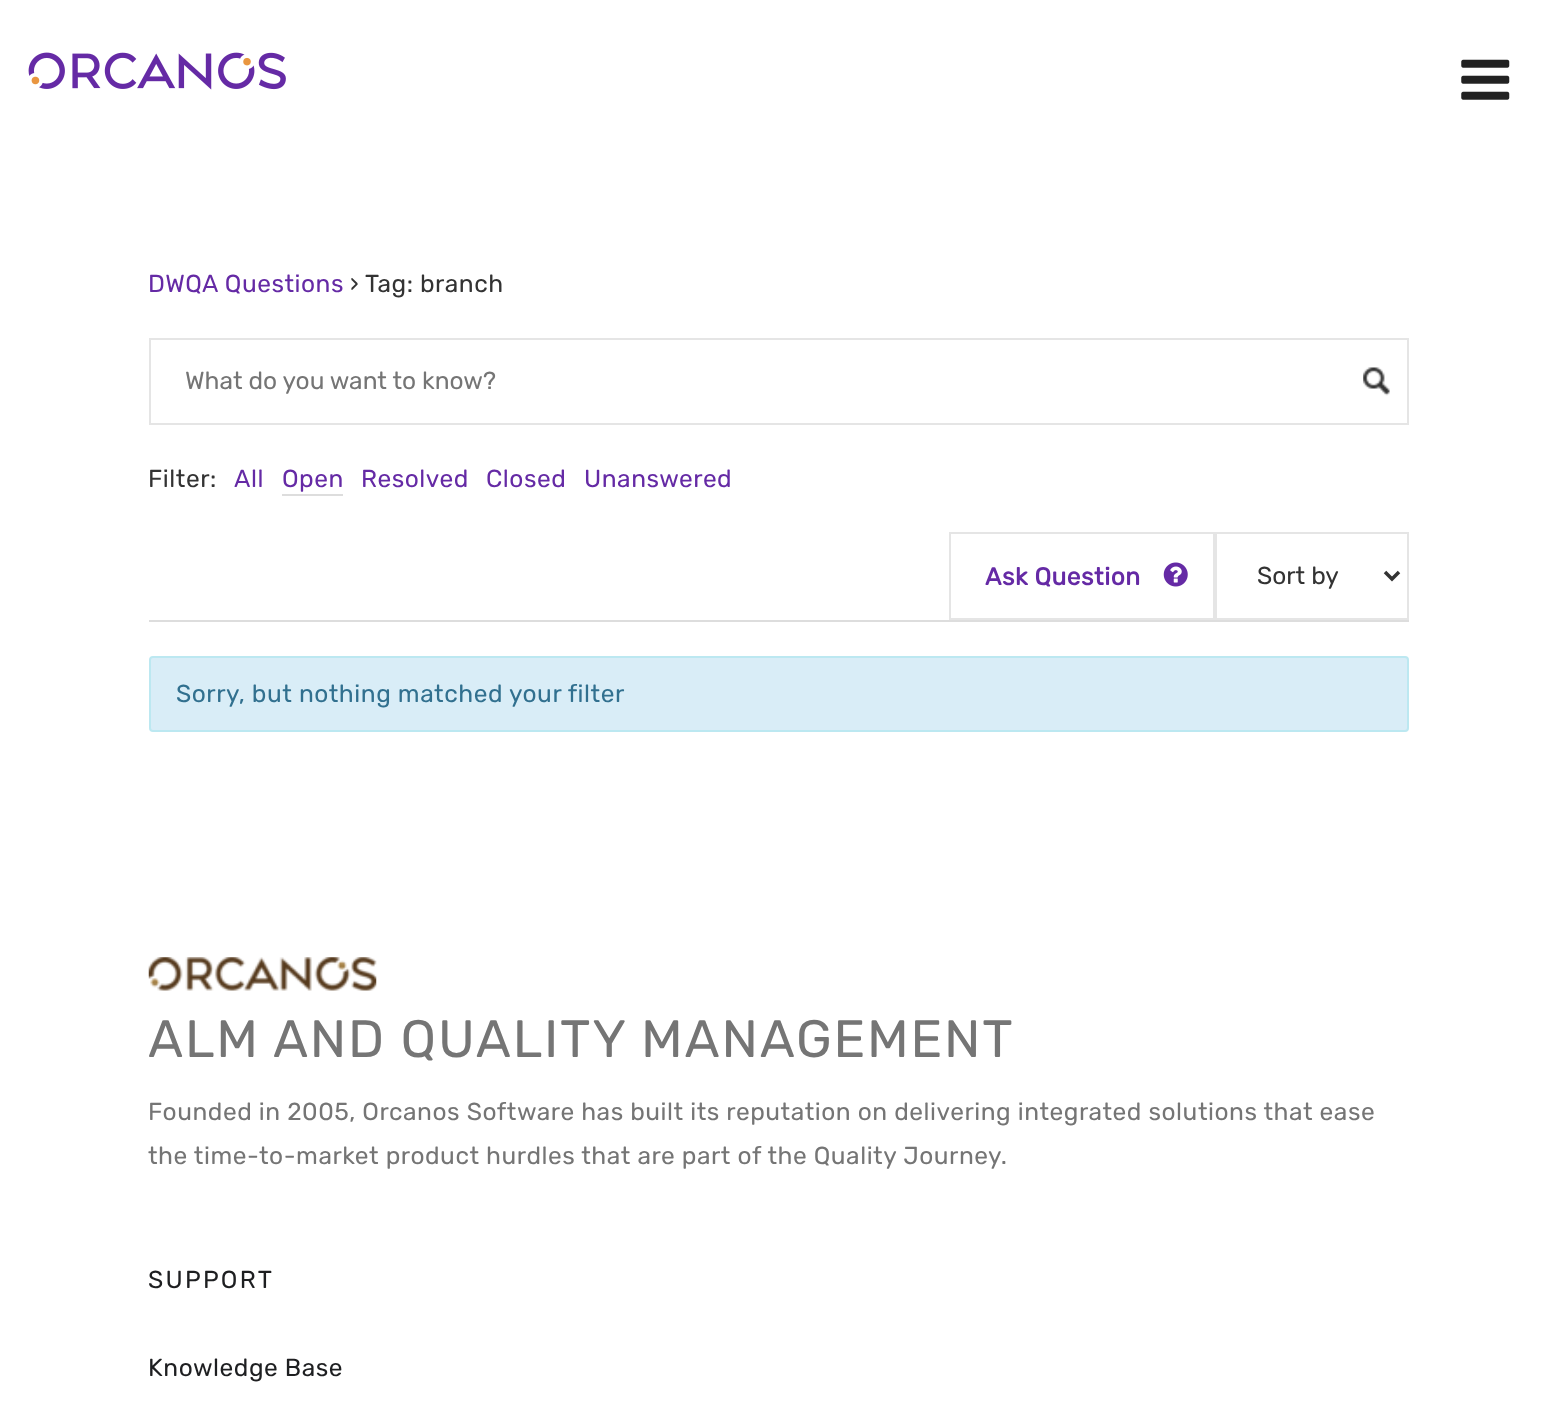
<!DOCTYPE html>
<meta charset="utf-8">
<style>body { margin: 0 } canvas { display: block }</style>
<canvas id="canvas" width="1555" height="1418"></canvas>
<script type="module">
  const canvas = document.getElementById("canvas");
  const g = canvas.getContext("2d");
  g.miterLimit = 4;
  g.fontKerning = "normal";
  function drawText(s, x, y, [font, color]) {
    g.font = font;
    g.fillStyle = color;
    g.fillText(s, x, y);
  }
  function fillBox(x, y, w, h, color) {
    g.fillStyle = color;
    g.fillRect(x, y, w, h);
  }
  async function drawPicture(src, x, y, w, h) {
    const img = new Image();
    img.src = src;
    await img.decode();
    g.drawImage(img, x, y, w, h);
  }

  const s1 = ["300 24.5px Rubik", "#652AA5"];
  const s2 = ["300 24.5px Rubik", "#333333"];
  const s3 = ["300 24.5px Rubik", "#757575"];
  const s4 = ["bold 24.5px Rubik", "#652AA5"];
  const s5 = ["300 24.5px Rubik", "#31708F"];
  const s6 = ["300 52.5px Rubik", "#757575"];
  const s7 = ["300 24.5px Rubik", "#1E1F21"];

  fillBox(0, 0, 1555, 1418, "#FFFFFF");
  await drawPicture("pic1.png", 28, 52, 258, 38);
  await drawPicture("pic2.png", 1461, 59, 49, 41);
  g.letterSpacing = "0.53px";
  drawText("DWQA Questions", 148, 292, s1);
  drawText("›", 350, 292, s2);
  drawText("Tag: branch", 365, 292, s2);
  await drawPicture("pic3.png", 1363, 367, 27, 29);
  g.strokeStyle = "#E5E5E5";
  g.lineWidth = 2;
  g.strokeRect(150, 339, 1258, 85);
  g.letterSpacing = "0px";
  drawText("What do you want to know?", 185, 389, s3);
  g.letterSpacing = "0.53px";
  drawText("Filter:", 148, 487, s2);
  drawText("All", 234, 487, s1);
  drawText("Open", 282, 487, s1);
  fillBox(282, 494, 61, 2, "#DDDDDD");
  drawText("Resolved", 361, 487, s1);
  drawText("Closed", 486, 487, s1);
  drawText("Unanswered", 584, 487, s1);
  g.strokeRect(950, 533, 264, 86);
  drawText("Ask Question", 985, 585, s4);
  await drawPicture("pic4.png", 1163, 562, 25, 25);
  g.strokeRect(1216, 533, 192, 86);
  g.beginPath();
  g.moveTo(1385, 572);
  g.lineTo(1392, 579);
  g.lineTo(1399, 572);
  g.strokeStyle = "#333333";
  g.lineWidth = 3.5;
  g.stroke();
  g.letterSpacing = "0px";
  drawText("Sort by", 1257, 584, s2);
  fillBox(149, 620, 1260, 2, "#DDDDDD");
  g.fillStyle = "#D9EDF7";
  g.beginPath();
  g.roundRect(150, 657, 1258, 74, 3);
  g.fill();
  g.strokeStyle = "#BCE8F1";
  g.lineWidth = 2;
  g.stroke();
  g.letterSpacing = "0.53px";
  drawText("Sorry, but nothing matched your filter", 176, 702, s5);
  await drawPicture("pic5.png", 148, 957, 229, 34);
  g.letterSpacing = "1.75px";
  drawText("ALM AND QUALITY MANAGEMENT", 148, 1057, s6);
  g.letterSpacing = "0.53px";
  drawText("Founded in 2005, Orcanos Software has built its reputation on delivering integrated solutions that ease", 148, 1120, s3);
  drawText("the time-to-market product hurdles that are part of the Quality Journey.", 148, 1164, s3);
  g.letterSpacing = "2.25px";
  drawText("SUPPORT", 148, 1288, s7);
  g.letterSpacing = "0.53px";
  drawText("Knowledge Base", 148, 1376, s7);
</script>
